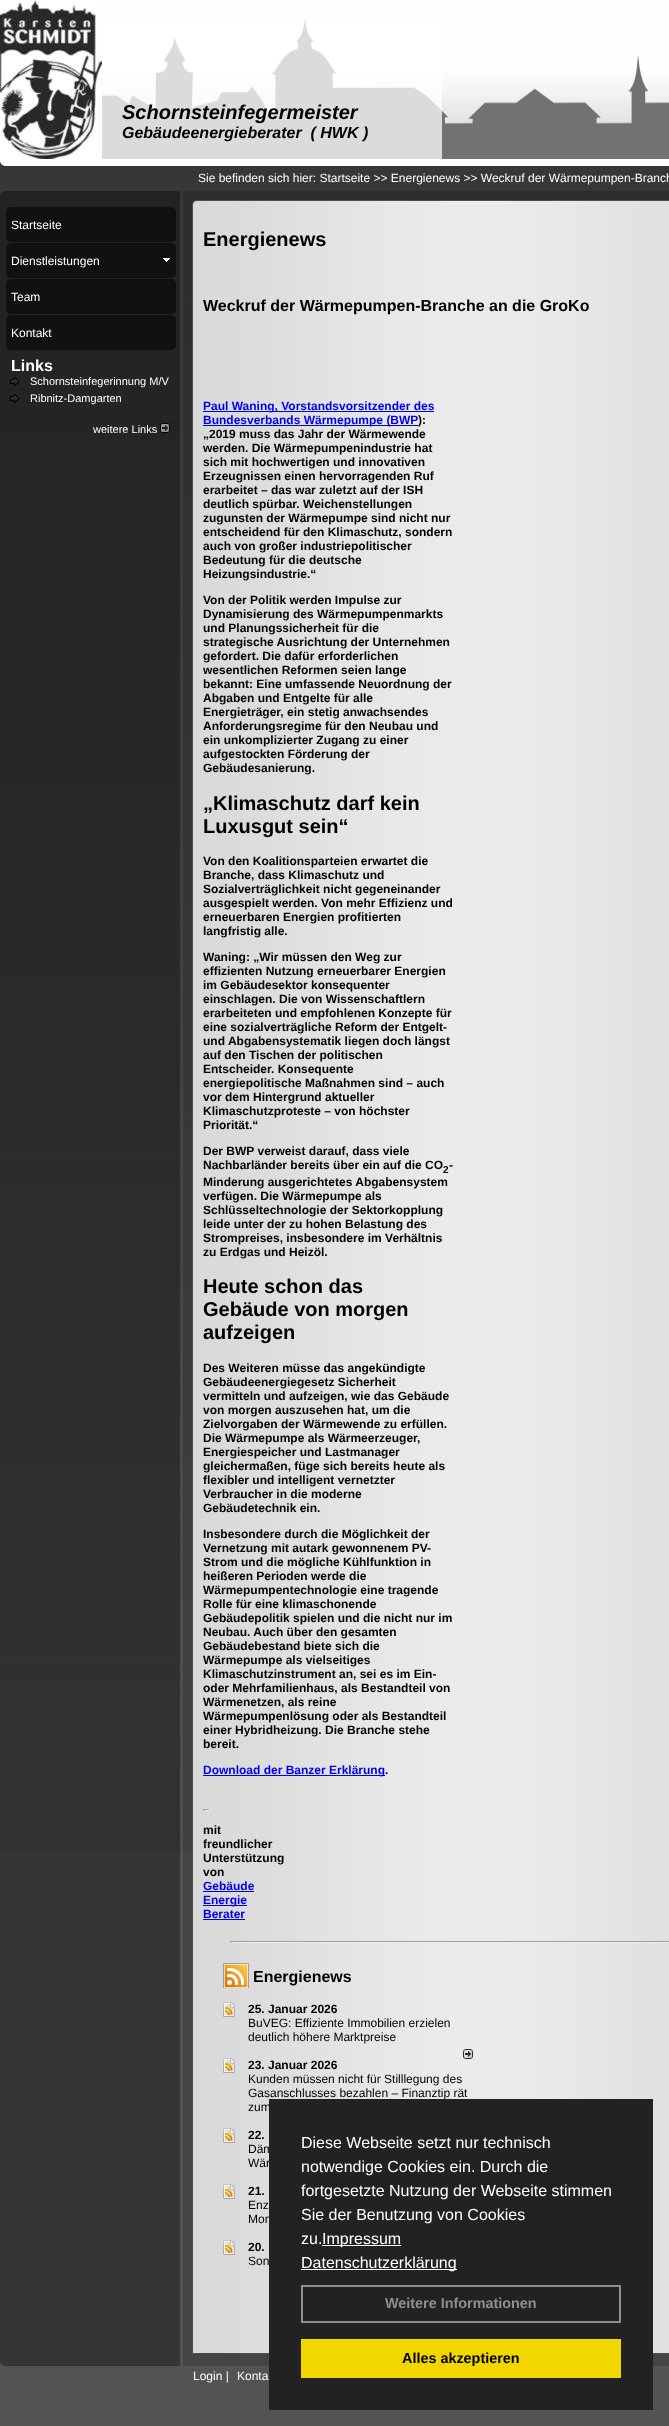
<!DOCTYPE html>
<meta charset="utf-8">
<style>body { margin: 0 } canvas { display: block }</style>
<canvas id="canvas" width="669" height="2426"></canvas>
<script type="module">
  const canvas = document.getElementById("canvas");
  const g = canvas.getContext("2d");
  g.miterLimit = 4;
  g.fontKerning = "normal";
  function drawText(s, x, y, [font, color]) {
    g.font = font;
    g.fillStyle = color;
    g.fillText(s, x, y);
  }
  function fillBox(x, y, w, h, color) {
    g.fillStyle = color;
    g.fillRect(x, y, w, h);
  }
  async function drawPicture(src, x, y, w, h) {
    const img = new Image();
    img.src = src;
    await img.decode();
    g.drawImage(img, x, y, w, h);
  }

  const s1 = ["italic bold 20px Liberation Sans", "#000000"];
  const s2 = ["italic bold 16px Liberation Sans", "#000000"];
  const s3 = ["12px Liberation Sans", "#FFFFFF"];
  const s4 = ["bold 16px Liberation Sans", "#FFFFFF"];
  const s5 = ["11px Liberation Sans", "#FFFFFF"];
  const s6 = ["bold 20px Liberation Sans", "#000000"];
  const s7 = ["bold 16px Liberation Sans", "#000000"];
  const s8 = ["bold 12px Liberation Sans", "#0000EE"];
  const s9 = ["bold 12px Liberation Sans", "#000000"];
  const s10 = ["bold 10px Liberation Sans", "#000000"];
  const s11 = ["12px Liberation Sans", "#000000"];
  const s12 = ["16px Liberation Sans", "#FFFFFF"];
  const s13 = ["bold 14.4px Liberation Sans", "#8F8F8F"];
  const s14 = ["bold 14.4px Liberation Sans", "#000000"];

  fillBox(0, 0, 669, 2426, "#535353");
  await drawPicture("pic1.png", 0, 159, 669, 1694);
  await drawPicture("pic2.png", 102, 0, 567, 159);
  await drawPicture("pic3.png", 0, 0, 102, 159);
  fillBox(102, 18, 340, 141, "rgba(255, 255, 255, 0.75)");
  drawText("Schornsteinfegermeister", 122, 119, s1);
  drawText("Gebäudeenergieberater  ( HWK )", 122, 138, s2);
  await drawPicture("pic4.png", 0, 159, 669, 7);
  drawText("Sie befinden sich hier: Startseite >> Energienews >> Weckruf der Wärmepumpen-Branch", 198, 182, s3);
  await drawPicture("pic5.png", 0, 191, 180, 15);
  await drawPicture("pic6.png", 183, 191, 486, 15);
  fillBox(0, 206, 180, 2145, "rgba(0, 0, 0, 0.36)");
  await drawPicture("pic7.png", 6, 207, 170, 35);
  drawText("Startseite", 11, 229, s3);
  await drawPicture("pic8.png", 6, 243, 170, 35);
  drawText("Dienstleistungen", 11, 265, s3);
  await drawPicture("pic9.png", 163, 258, 7, 4);
  await drawPicture("pic10.png", 6, 279, 170, 35);
  drawText("Team", 11, 301, s3);
  await drawPicture("pic11.png", 6, 315, 170, 35);
  drawText("Kontakt", 11, 337, s3);
  drawText("Links", 11, 371, s4);
  await drawPicture("pic12.png", 10, 377, 10, 9);
  drawText("Schornsteinfegerinnung M/V", 30, 385, s5);
  await drawPicture("pic13.png", 10, 394, 10, 9);
  drawText("Ribnitz-Damgarten", 30, 402, s5);
  drawText("weitere Links", 93, 433, s5);
  await drawPicture("pic14.png", 160, 423, 10, 10);
  await drawPicture("pic15.png", 183, 206, 486, 2145);
  drawText("Energienews", 203, 246, s6);
  drawText("Weckruf der Wärmepumpen-Branche an die GroKo", 203, 311, s7);
  fillBox(203, 411, 231, 1, "#0000EE");
  drawText("Paul Waning, Vorstandsvorsitzender des", 203, 410, s8);
  fillBox(203, 425, 187, 1, "#0000EE");
  drawText("Bundesverbands Wärmepumpe (BWP", 203, 424, s8);
  drawText("):", 418, 424, s9);
  fillBox(390, 425, 28, 1, "#0000EE");
  drawText("„2019 muss das Jahr der Wärmewende", 203, 438, s9);
  drawText("werden. Die Wärmepumpenindustrie hat", 203, 452, s9);
  drawText("sich mit hochwertigen und innovativen", 203, 466, s9);
  drawText("Erzeugnissen einen hervorragenden Ruf", 203, 480, s9);
  drawText("erarbeitet – das war zuletzt auf der ISH", 203, 494, s9);
  drawText("deutlich spürbar. Weichenstellungen", 203, 508, s9);
  drawText("zugunsten der Wärmepumpe sind nicht nur", 203, 522, s9);
  drawText("entscheidend für den Klimaschutz, sondern", 203, 536, s9);
  drawText("auch von großer industriepolitischer", 203, 550, s9);
  drawText("Bedeutung für die deutsche", 203, 564, s9);
  drawText("Heizungsindustrie.“", 203, 578, s9);
  drawText("Von der Politik werden Impulse zur", 203, 604, s9);
  drawText("Dynamisierung des Wärmepumpenmarkts", 203, 618, s9);
  drawText("und Planungssicherheit für die", 203, 632, s9);
  drawText("strategische Ausrichtung der Unternehmen", 203, 646, s9);
  drawText("gefordert. Die dafür erforderlichen", 203, 660, s9);
  drawText("wesentlichen Reformen seien lange", 203, 674, s9);
  drawText("bekannt: Eine umfassende Neuordnung der", 203, 688, s9);
  drawText("Abgaben und Entgelte für alle", 203, 702, s9);
  drawText("Energieträger, ein stetig anwachsendes", 203, 716, s9);
  drawText("Anforderungsregime für den Neubau und", 203, 730, s9);
  drawText("ein unkomplizierter Zugang zu einer", 203, 744, s9);
  drawText("aufgestockten Förderung der", 203, 758, s9);
  drawText("Gebäudesanierung.", 203, 772, s9);
  drawText("„Klimaschutz darf kein", 203, 810, s6);
  drawText("Luxusgut sein“", 203, 833, s6);
  drawText("Von den Koalitionsparteien erwartet die", 203, 865, s9);
  drawText("Branche, dass Klimaschutz und", 203, 879, s9);
  drawText("Sozialverträglichkeit nicht gegeneinander", 203, 893, s9);
  drawText("ausgespielt werden. Von mehr Effizienz und", 203, 907, s9);
  drawText("erneuerbaren Energien profitierten", 203, 921, s9);
  drawText("langfristig alle.", 203, 935, s9);
  drawText("Waning: „Wir müssen den Weg zur", 203, 961, s9);
  drawText("effizienten Nutzung erneuerbarer Energien", 203, 975, s9);
  drawText("im Gebäudesektor konsequenter", 203, 989, s9);
  drawText("einschlagen. Die von Wissenschaftlern", 203, 1003, s9);
  drawText("erarbeiteten und empfohlenen Konzepte für", 203, 1017, s9);
  drawText("eine sozialverträgliche Reform der Entgelt-", 203, 1031, s9);
  drawText("und Abgabensystematik liegen doch längst", 203, 1045, s9);
  drawText("auf den Tischen der politischen", 203, 1059, s9);
  drawText("Entscheider. Konsequente", 203, 1073, s9);
  drawText("energiepolitische Maßnahmen sind – auch", 203, 1087, s9);
  drawText("vor dem Hintergrund aktueller", 203, 1101, s9);
  drawText("Klimaschutzproteste – von höchster", 203, 1115, s9);
  drawText("Priorität.“", 203, 1129, s9);
  drawText("Der BWP verweist darauf, dass viele", 203, 1155, s9);
  drawText("Nachbarländer bereits über ein auf die CO", 203, 1169, s9);
  drawText("2", 443, 1173, s10);
  drawText("-", 449, 1169, s9);
  drawText("Minderung ausgerichtetes Abgabensystem", 203, 1186, s9);
  drawText("verfügen. Die Wärmepumpe als", 203, 1200, s9);
  drawText("Schlüsseltechnologie der Sektorkopplung", 203, 1214, s9);
  drawText("leide unter der zu hohen Belastung des", 203, 1228, s9);
  drawText("Strompreises, insbesondere im Verhältnis", 203, 1242, s9);
  drawText("zu Erdgas und Heizöl.", 203, 1256, s9);
  drawText("Heute schon das", 203, 1293, s6);
  drawText("Gebäude von morgen", 203, 1316, s6);
  drawText("aufzeigen", 203, 1339, s6);
  drawText("Des Weiteren müsse das angekündigte", 203, 1372, s9);
  drawText("Gebäudeenergiegesetz Sicherheit", 203, 1386, s9);
  drawText("vermitteln und aufzeigen, wie das Gebäude", 203, 1400, s9);
  drawText("von morgen auszusehen hat, um die", 203, 1414, s9);
  drawText("Zielvorgaben der Wärmewende zu erfüllen.", 203, 1428, s9);
  drawText("Die Wärmepumpe als Wärmeerzeuger,", 203, 1442, s9);
  drawText("Energiespeicher und Lastmanager", 203, 1456, s9);
  drawText("gleichermaßen, füge sich bereits heute als", 203, 1470, s9);
  drawText("flexibler und intelligent vernetzter", 203, 1484, s9);
  drawText("Verbraucher in die moderne", 203, 1498, s9);
  drawText("Gebäudetechnik ein.", 203, 1512, s9);
  drawText("Insbesondere durch die Möglichkeit der", 203, 1538, s9);
  drawText("Vernetzung mit autark gewonnenem PV-", 203, 1552, s9);
  drawText("Strom und die mögliche Kühlfunktion in", 203, 1566, s9);
  drawText("heißeren Perioden werde die", 203, 1580, s9);
  drawText("Wärmepumpentechnologie eine tragende", 203, 1594, s9);
  drawText("Rolle für eine klimaschonende", 203, 1608, s9);
  drawText("Gebäudepolitik spielen und die nicht nur im", 203, 1622, s9);
  drawText("Neubau. Auch über den gesamten", 203, 1636, s9);
  drawText("Gebäudebestand biete sich die", 203, 1650, s9);
  drawText("Wärmepumpe als vielseitiges", 203, 1664, s9);
  drawText("Klimaschutzinstrument an, sei es im Ein-", 203, 1678, s9);
  drawText("oder Mehrfamilienhaus, als Bestandteil von", 203, 1692, s9);
  drawText("Wärmenetzen, als reine", 203, 1706, s9);
  drawText("Wärmepumpenlösung oder als Bestandteil", 203, 1720, s9);
  drawText("einer Hybridheizung. Die Branche stehe", 203, 1734, s9);
  drawText("bereit.", 203, 1748, s9);
  fillBox(203, 1775, 182, 1, "#0000EE");
  drawText("Download der Banzer Erklärung", 203, 1774, s8);
  drawText(".", 385, 1774, s9);
  fillBox(203, 1809, 7, 1, "#9F9F9F");
  fillBox(209, 1809, 1, 2, "#EEEEEE");
  fillBox(203, 1810, 7, 1, "#EEEEEE");
  fillBox(203, 1809, 1, 2, "#9F9F9F");
  drawText("mit", 203, 1834, s9);
  drawText("freundlicher", 203, 1848, s9);
  drawText("Unterstützung", 203, 1862, s9);
  drawText("von", 203, 1876, s9);
  drawText("Gebäude", 203, 1890, s8);
  fillBox(203, 1891, 51, 1, "#0000EE");
  fillBox(203, 1905, 44, 1, "#0000EE");
  drawText("Energie", 203, 1904, s8);
  drawText("Berater", 203, 1918, s8);
  fillBox(203, 1919, 42, 1, "#0000EE");
  fillBox(230, 1941, 439, 1, "#9F9F9F");
  fillBox(230, 1942, 439, 1, "#EEEEEE");
  fillBox(230, 1941, 1, 2, "#9F9F9F");
  await drawPicture("pic16.png", 223, 1963, 26, 25);
  drawText("Energienews", 253, 1982, s7);
  await drawPicture("pic17.png", 223, 2002, 12, 15);
  drawText("25. Januar 2026", 248, 2013, s9);
  drawText("BuVEG: Effiziente Immobilien erzielen", 248, 2027, s11);
  drawText("deutlich höhere Marktpreise", 248, 2041, s11);
  await drawPicture("pic18.png", 463, 2049, 10, 10);
  await drawPicture("pic17.png", 223, 2058, 12, 15);
  drawText("23. Januar 2026", 248, 2069, s9);
  drawText("Kunden müssen nicht für Stilllegung des", 248, 2083, s11);
  drawText("Gasanschlusses bezahlen – Finanztip rät", 248, 2097, s11);
  drawText("zum", 248, 2111, s11);
  await drawPicture("pic17.png", 223, 2128, 12, 15);
  drawText("22.", 248, 2139, s9);
  drawText("Däm", 248, 2153, s11);
  drawText("Wär", 248, 2167, s11);
  await drawPicture("pic17.png", 223, 2184, 12, 15);
  drawText("21.", 248, 2195, s9);
  drawText("Enz", 248, 2209, s11);
  drawText("Mon", 248, 2223, s11);
  await drawPicture("pic17.png", 223, 2240, 12, 15);
  drawText("20.", 248, 2251, s9);
  drawText("Son", 248, 2265, s11);
  await drawPicture("pic19.png", 0, 2351, 180, 15);
  await drawPicture("pic20.png", 183, 2351, 486, 15);
  drawText("Login |", 193, 2380, s3);
  drawText("Konta", 237, 2380, s3);
  fillBox(269, 2099, 384, 311, "#222222");
  drawText("Diese Webseite setzt nur technisch", 301, 2148, s12);
  drawText("notwendige Cookies ein. Durch die", 301, 2172, s12);
  drawText("fortgesetzte Nutzung der Webseite stimmen", 301, 2196, s12);
  drawText("Sie der Benutzung von Cookies", 301, 2220, s12);
  drawText("zu.", 301, 2244, s12);
  fillBox(322, 2245, 79, 1, "#FFFFFF");
  drawText("Impressum", 322, 2244, s12);
  fillBox(301, 2269, 156, 1, "#FFFFFF");
  drawText("Datenschutzerklärung", 301, 2268, s12);
  g.strokeStyle = "#8F8F8F";
  g.lineWidth = 2;
  g.strokeRect(302, 2286, 318, 36);
  drawText("Weitere Informationen", 385, 2308, s13);
  fillBox(301, 2339, 320, 39, "#F1D600");
  drawText("Alles akzeptieren", 402, 2363, s14);
</script>
